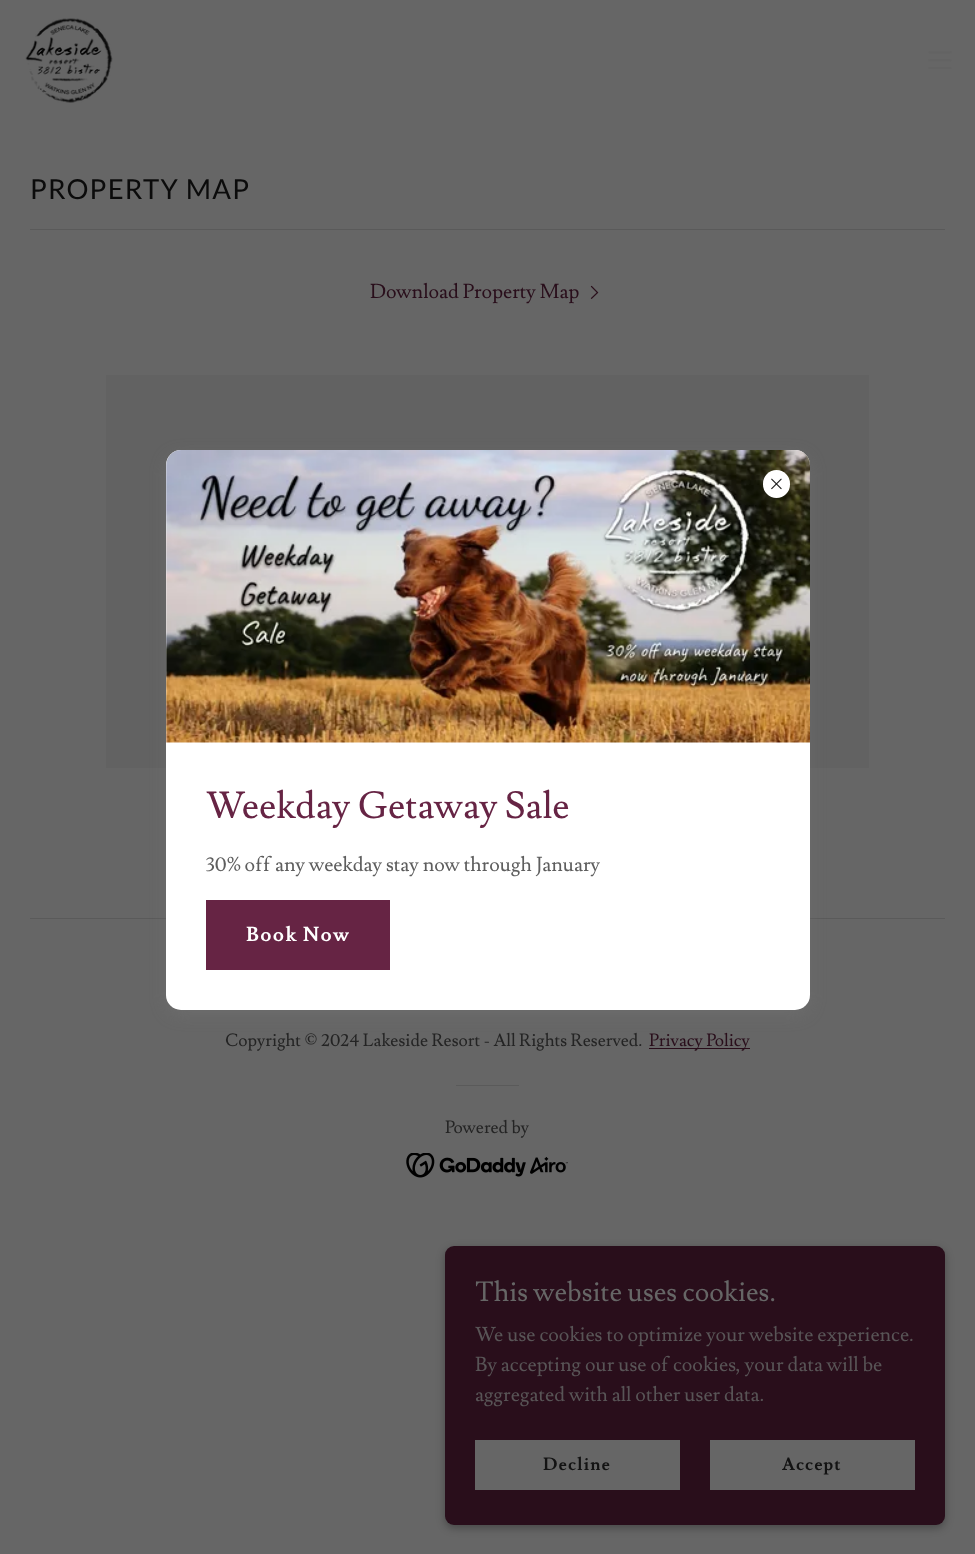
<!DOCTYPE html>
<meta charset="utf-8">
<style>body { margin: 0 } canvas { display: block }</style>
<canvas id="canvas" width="975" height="1554"></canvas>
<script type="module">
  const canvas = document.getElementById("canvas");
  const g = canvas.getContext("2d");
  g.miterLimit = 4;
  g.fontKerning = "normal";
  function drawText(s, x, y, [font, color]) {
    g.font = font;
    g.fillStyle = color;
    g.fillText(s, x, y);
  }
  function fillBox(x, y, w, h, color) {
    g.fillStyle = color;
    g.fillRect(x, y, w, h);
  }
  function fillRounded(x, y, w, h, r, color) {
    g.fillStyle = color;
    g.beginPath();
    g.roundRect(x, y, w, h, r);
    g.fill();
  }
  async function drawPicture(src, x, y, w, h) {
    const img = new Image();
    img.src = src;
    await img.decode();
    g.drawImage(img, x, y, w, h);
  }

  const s1 = ["27.5px Lato", "#0B0B0B"];
  const s2 = ["20px Lusitana", "#290E1B"];
  const s3 = ["37.5px Lusitana", "#662444"];
  const s4 = ["20px Lusitana", "#5E5E5E"];
  const s5 = ["bold 20px Lusitana", "#FFFFFF"];
  const s6 = ["17.5px Lusitana", "#242424"];
  const s7 = ["17.5px Lusitana", "#290E1B"];
  const s8 = ["27.5px Lusitana", "#666666"];
  const s9 = ["20px Lusitana", "#585456"];
  const s10 = ["bold 17.5px Lusitana", "#131313"];

  fillBox(0, 0, 975, 1554, "#666666");
  await drawPicture("pic1.png", 25, 18, 88, 85);
  await drawPicture("pic2.png", 928, 51, 24, 18);
  g.letterSpacing = "1.25px";
  drawText("PROPERTY MAP", 30, 199, s1);
  fillBox(30, 229, 915, 1, "#5A5A5A");
  g.letterSpacing = "0px";
  drawText("Download Property Map", 370, 298, s2);
  await drawPicture("pic3.png", 590, 285, 9, 14);
  fillBox(106, 375, 763, 393, "#626262");
  fillBox(30, 918, 915, 1, "#5A5A5A");
  g.fillStyle = "rgba(117, 117, 117, 0.4)";
  g.filter = "blur(7.5px)";
  g.beginPath();
  g.roundRect(166, 455, 644, 560, 15);
  g.fill();
  g.filter = "none";
  fillRounded(166, 450, 644, 560, 15, "#FFFFFF");
  await drawPicture("pic5.png", 166, 450, 644, 293);
  fillRounded(763, 470, 27, 28, 13.5, "#FFFFFF");
  await drawPicture("pic4.png", 771, 478, 11, 12);
  drawText("Weekday Getaway Sale", 206, 818, s3);
  drawText("30% off any weekday stay now through January", 206, 871, s4);
  fillBox(206, 900, 184, 70, "#662444");
  g.letterSpacing = "1.25px";
  drawText("Book Now", 246, 941, s5);
  g.letterSpacing = "0px";
  drawText("Copyright © 2024 Lakeside Resort - All Rights Reserved.", 225, 1046, s6);
  fillBox(649, 1048, 101, 1, "#290E1B");
  drawText("Privacy Policy", 649, 1046, s7);
  fillBox(456, 1085, 63, 1, "#5A5A5A");
  drawText("Powered by", 445, 1133, s6);
  await drawPicture("pic6.png", 406, 1153, 162, 25);
  g.fillStyle = "rgba(0, 0, 0, 0.3)";
  g.filter = "blur(4px)";
  g.beginPath();
  g.roundRect(445, 1249, 500, 279, 9);
  g.fill();
  g.filter = "none";
  fillRounded(445, 1246, 500, 279, 9, "#290E1B");
  drawText("This website uses cookies.", 475, 1301, s8);
  drawText("We use cookies to optimize your website experience.", 475, 1341, s9);
  drawText("By accepting our use of cookies, your data will be", 475, 1371, s9);
  drawText("aggregated with all other user data.", 475, 1401, s9);
  fillBox(475, 1440, 205, 50, "#666666");
  g.letterSpacing = "1px";
  drawText("Decline", 543, 1470, s10);
  fillBox(710, 1440, 205, 50, "#666666");
  drawText("Accept", 782, 1470, s10);
</script>
